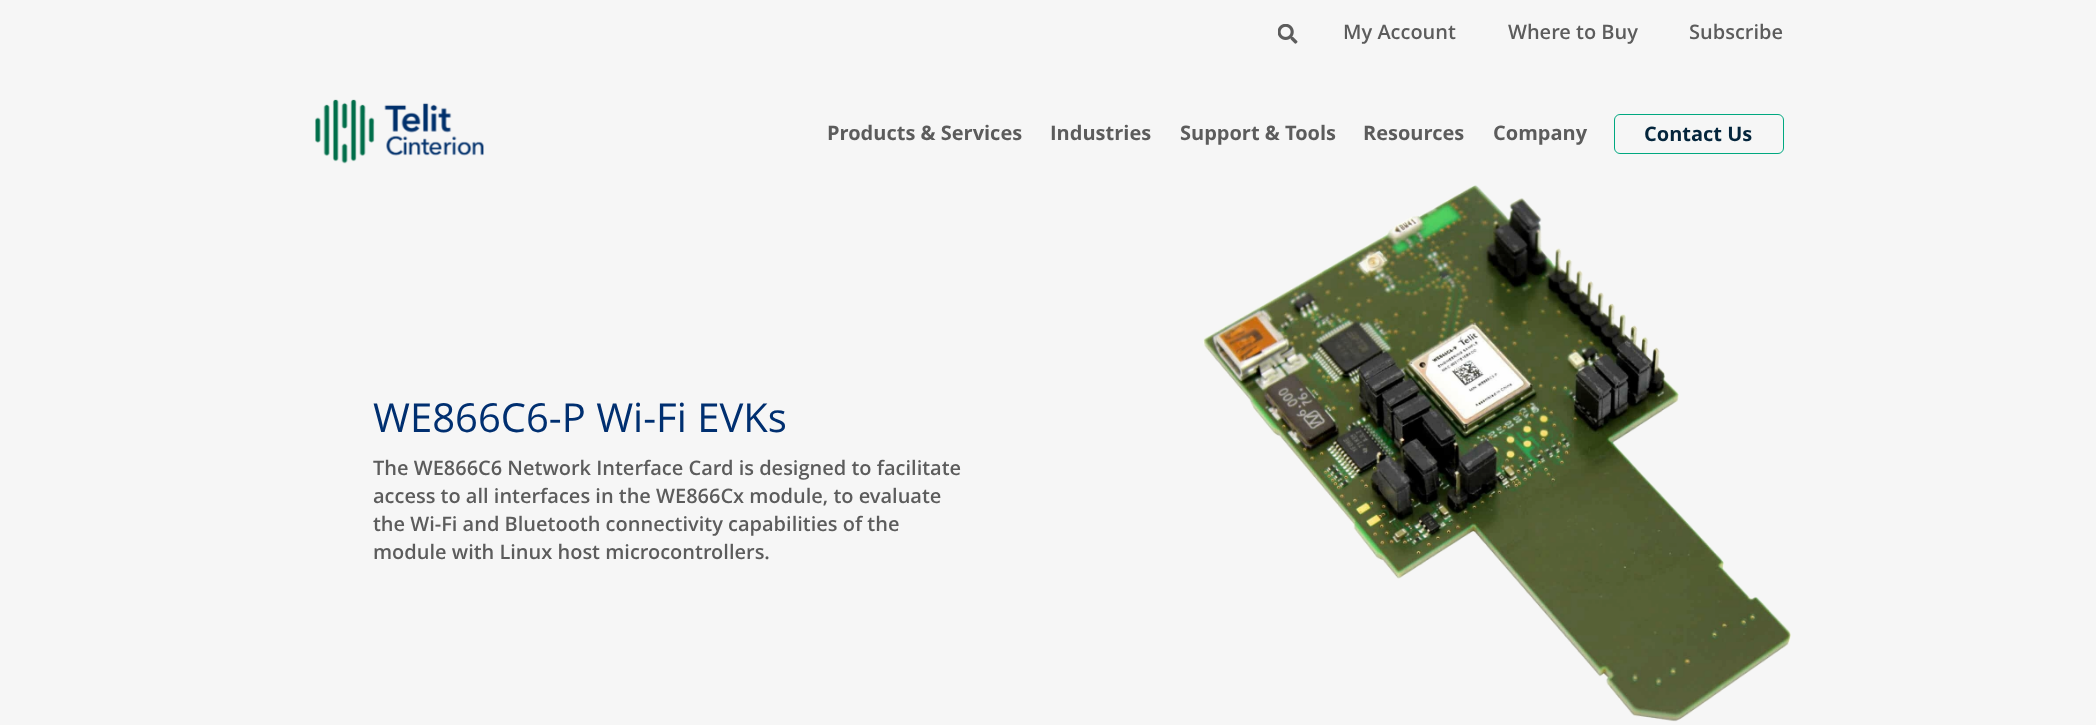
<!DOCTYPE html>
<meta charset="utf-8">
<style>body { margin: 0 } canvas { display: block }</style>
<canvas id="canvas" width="2096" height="725"></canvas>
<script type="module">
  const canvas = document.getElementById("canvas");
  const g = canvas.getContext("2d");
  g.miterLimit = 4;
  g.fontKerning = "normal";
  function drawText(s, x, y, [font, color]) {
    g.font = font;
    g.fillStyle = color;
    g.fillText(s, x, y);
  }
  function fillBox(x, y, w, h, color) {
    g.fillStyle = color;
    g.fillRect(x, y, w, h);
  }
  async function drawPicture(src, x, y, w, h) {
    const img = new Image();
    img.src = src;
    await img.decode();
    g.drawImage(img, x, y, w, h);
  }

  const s1 = ["600 20px Open Sans", "#5C5C5C"];
  const s2 = ["bold 20px Open Sans", "#5C5C5C"];
  const s3 = ["bold 20px Open Sans", "#04253C"];
  const s4 = ["40px Open Sans", "#002F70"];

  fillBox(0, 0, 2096, 725, "#F6F6F6");
  await drawPicture("pic1.png", 1278, 24, 20, 20);
  drawText("My Account", 1343, 39, s1);
  drawText("Where to Buy", 1508, 39, s1);
  drawText("Subscribe", 1689, 39, s1);
  await drawPicture("pic2.png", 315, 99, 169, 65);
  drawText("Products & Services", 827, 140, s2);
  drawText("Industries", 1050, 140, s2);
  drawText("Support & Tools", 1180, 140, s2);
  drawText("Resources", 1363, 140, s2);
  drawText("Company", 1493, 140, s2);
  g.beginPath();
  g.roundRect(1614.5, 114.5, 169, 39, 5.5);
  g.strokeStyle = "#00A880";
  g.stroke();
  drawText("Contact Us", 1644, 141, s3);
  drawText("WE866C6-P Wi-Fi EVKs", 373, 432, s4);
  drawText("The WE866C6 Network Interface Card is designed to facilitate", 373, 475, s1);
  drawText("access to all interfaces in the WE866Cx module, to evaluate", 373, 503, s1);
  drawText("the Wi-Fi and Bluetooth connectivity capabilities of the", 373, 531, s1);
  drawText("module with Linux host microcontrollers.", 373, 559, s1);
  await drawPicture("pic3.png", 1203, 185, 588, 537);
</script>
